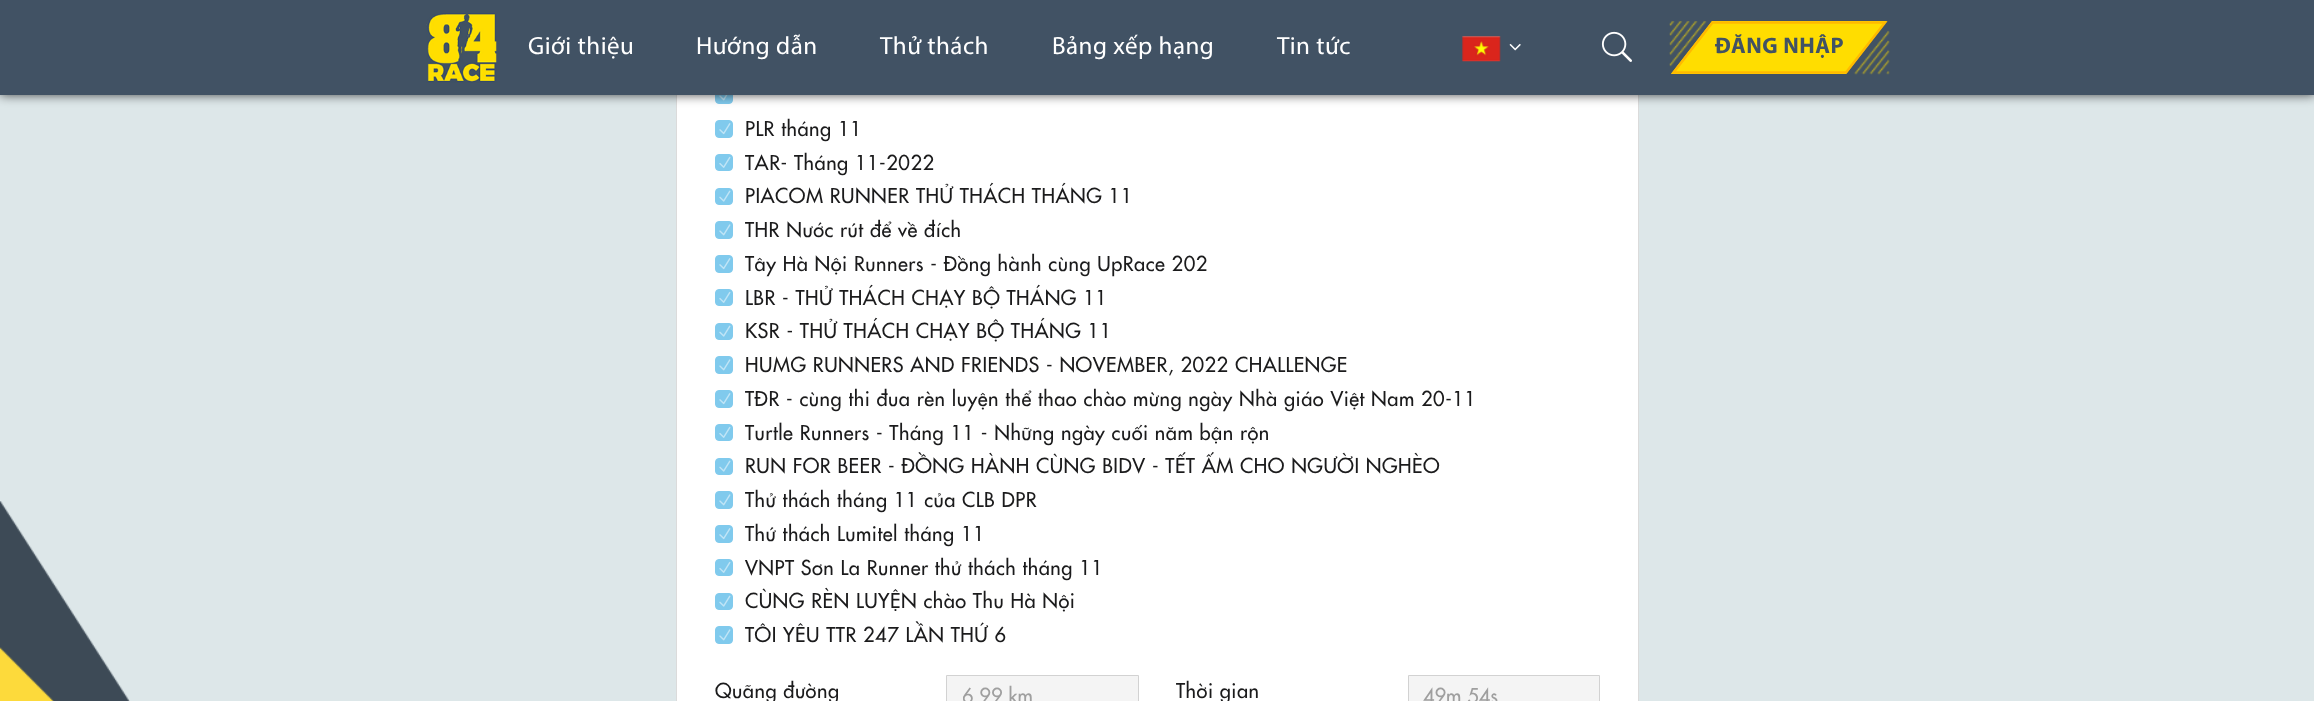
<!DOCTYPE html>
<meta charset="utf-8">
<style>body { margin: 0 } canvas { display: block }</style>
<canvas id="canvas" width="2314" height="701"></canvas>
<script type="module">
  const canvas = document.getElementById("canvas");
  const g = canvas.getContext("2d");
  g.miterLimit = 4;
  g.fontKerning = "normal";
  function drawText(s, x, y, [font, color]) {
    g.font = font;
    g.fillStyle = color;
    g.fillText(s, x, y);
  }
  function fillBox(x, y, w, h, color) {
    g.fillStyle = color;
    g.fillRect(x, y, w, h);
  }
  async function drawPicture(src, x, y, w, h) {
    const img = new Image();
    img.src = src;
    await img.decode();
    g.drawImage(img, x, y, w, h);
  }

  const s1 = ["25px Myriad", "#FFFFFF"];
  const s2 = ["bold 22.5px Myriad", "#415264"];
  const s3 = ["20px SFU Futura", "#1B1B1C"];
  const s4 = ["20px SFU Futura", "#9F9F9F"];

  fillBox(0, 0, 2314, 701, "#DDE7E9");
  fillBox(677, 95, 961, 606, "#FFFFFF");
  g.strokeStyle = "#DBDBDB";
  g.strokeRect(676.5, -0.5, 962, 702);
  g.fillStyle = "#80CAED";
  g.beginPath();
  g.roundRect(715.5, 86.5, 17, 17, 3.5);
  g.fill();
  g.strokeStyle = "#80CAED";
  g.stroke();
  await drawPicture("pic7.png", 719, 95, 9, 6);
  g.fillStyle = "rgba(0, 0, 0, 0.7)";
  g.filter = "blur(5.5px)";
  g.beginPath();
  g.rect(0, 0, 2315, 95);
  g.fill();
  g.filter = "none";
  fillBox(0, 0, 2314, 95, "#415264");
  await drawPicture("pic1.png", 426, 13, 71, 70);
  g.letterSpacing = "0.5px";
  drawText("Giới thiệu", 528, 54, s1);
  drawText("Hướng dẫn", 696, 54, s1);
  drawText("Thử thách", 880, 54, s1);
  drawText("Bảng xếp hạng", 1052, 54, s1);
  drawText("Tin tức", 1277, 54, s1);
  await drawPicture("pic2.png", 1462, 36, 39, 26);
  await drawPicture("pic3.png", 1509, 43, 12, 8);
  await drawPicture("pic4.png", 1601, 31, 31, 31);
  await drawPicture("pic5.png", 1669, 21, 221, 54);
  g.fillStyle = "#FFDD00";
  g.beginPath();
  g.moveTo(1712, 21);
  g.lineTo(1887, 21);
  g.lineTo(1846, 74);
  g.lineTo(1671, 74);
  g.closePath();
  g.fill();
  g.beginPath();
  g.moveTo(1712.5, 22.5);
  g.lineTo(1885, 22.5);
  g.lineTo(1846, 72.5);
  g.lineTo(1673.5, 72.5);
  g.closePath();
  g.strokeStyle = "#FFBA00";
  g.lineWidth = 2.5;
  g.stroke();
  drawText("ĐĂNG NHẬP", 1715, 53, s2);
  await drawPicture("pic6.png", 0, 501, 130, 200);
  g.fillStyle = "#80CAED";
  g.beginPath();
  g.roundRect(715.5, 120.5, 17, 17, 3.5);
  g.fill();
  g.strokeStyle = "#80CAED";
  g.lineWidth = 1;
  g.stroke();
  await drawPicture("pic8.png", 719, 123, 12, 12);
  drawText("PLR tháng 11", 745, 136, s3);
  g.fillStyle = "#80CAED";
  g.beginPath();
  g.roundRect(715.5, 154.5, 17, 16, 3.5);
  g.fill();
  g.stroke();
  await drawPicture("pic9.png", 719, 156, 12, 12);
  drawText("TAR- Tháng 11-2022", 745, 170, s3);
  g.fillStyle = "#80CAED";
  g.beginPath();
  g.roundRect(715.5, 188.5, 17, 16, 3.5);
  g.fill();
  g.stroke();
  await drawPicture("pic10.png", 719, 190, 12, 12);
  drawText("PIACOM RUNNER THỬ THÁCH THÁNG 11", 745, 203, s3);
  g.fillStyle = "#80CAED";
  g.beginPath();
  g.roundRect(715.5, 221.5, 17, 17, 3.5);
  g.fill();
  g.stroke();
  await drawPicture("pic11.png", 719, 224, 12, 12);
  drawText("THR Nước rút để về đích", 745, 237, s3);
  g.fillStyle = "#80CAED";
  g.beginPath();
  g.roundRect(715.5, 255.5, 17, 17, 3.5);
  g.fill();
  g.stroke();
  await drawPicture("pic8.png", 719, 258, 12, 12);
  drawText("Tây Hà Nội Runners - Đồng hành cùng UpRace 202", 745, 271, s3);
  g.fillStyle = "#80CAED";
  g.beginPath();
  g.roundRect(715.5, 289.5, 17, 16, 3.5);
  g.fill();
  g.stroke();
  await drawPicture("pic9.png", 719, 291, 12, 12);
  drawText("LBR - THỬ THÁCH CHẠY BỘ THÁNG 11", 745, 305, s3);
  g.fillStyle = "#80CAED";
  g.beginPath();
  g.roundRect(715.5, 323.5, 17, 16, 3.5);
  g.fill();
  g.stroke();
  await drawPicture("pic10.png", 719, 325, 12, 12);
  drawText("KSR - THỬ THÁCH CHẠY BỘ THÁNG 11", 745, 338, s3);
  g.fillStyle = "#80CAED";
  g.beginPath();
  g.roundRect(715.5, 356.5, 17, 17, 3.5);
  g.fill();
  g.stroke();
  await drawPicture("pic11.png", 719, 359, 12, 12);
  drawText("HUMG RUNNERS AND FRIENDS - NOVEMBER, 2022 CHALLENGE", 745, 372, s3);
  g.fillStyle = "#80CAED";
  g.beginPath();
  g.roundRect(715.5, 390.5, 17, 17, 3.5);
  g.fill();
  g.stroke();
  await drawPicture("pic8.png", 719, 393, 12, 12);
  drawText("TĐR - cùng thi đua rèn luyện thể thao chào mừng ngày Nhà giáo Việt Nam 20-11", 745, 406, s3);
  g.fillStyle = "#80CAED";
  g.beginPath();
  g.roundRect(715.5, 424.5, 17, 16, 3.5);
  g.fill();
  g.stroke();
  await drawPicture("pic9.png", 719, 426, 12, 12);
  drawText("Turtle Runners - Tháng 11 - Những ngày cuối năm bận rộn", 745, 440, s3);
  g.fillStyle = "#80CAED";
  g.beginPath();
  g.roundRect(715.5, 458.5, 17, 16, 3.5);
  g.fill();
  g.stroke();
  await drawPicture("pic10.png", 719, 460, 12, 12);
  drawText("RUN FOR BEER - ĐỒNG HÀNH CÙNG BIDV - TẾT ẤM CHO NGƯỜI NGHÈO", 745, 473, s3);
  g.fillStyle = "#80CAED";
  g.beginPath();
  g.roundRect(715.5, 491.5, 17, 17, 3.5);
  g.fill();
  g.stroke();
  await drawPicture("pic11.png", 719, 494, 12, 12);
  drawText("Thử thách tháng 11 của CLB DPR", 745, 507, s3);
  g.fillStyle = "#80CAED";
  g.beginPath();
  g.roundRect(715.5, 525.5, 17, 17, 3.5);
  g.fill();
  g.stroke();
  await drawPicture("pic8.png", 719, 528, 12, 12);
  drawText("Thứ thách Lumitel tháng 11", 745, 541, s3);
  g.fillStyle = "#80CAED";
  g.beginPath();
  g.roundRect(715.5, 559.5, 17, 16, 3.5);
  g.fill();
  g.stroke();
  await drawPicture("pic9.png", 719, 561, 12, 12);
  drawText("VNPT Sơn La Runner thử thách tháng 11", 745, 575, s3);
  g.fillStyle = "#80CAED";
  g.beginPath();
  g.roundRect(715.5, 593.5, 17, 16, 3.5);
  g.fill();
  g.stroke();
  await drawPicture("pic10.png", 719, 595, 12, 12);
  drawText("CÙNG RÈN LUYỆN chào Thu Hà Nội", 745, 608, s3);
  g.fillStyle = "#80CAED";
  g.beginPath();
  g.roundRect(715.5, 626.5, 17, 17, 3.5);
  g.fill();
  g.stroke();
  await drawPicture("pic11.png", 719, 629, 12, 12);
  drawText("TÔI YÊU TTR 247 LẦN THỨ 6", 745, 642, s3);
  drawText("Quãng đường", 715, 698, s3);
  g.fillStyle = "#F4F4F4";
  g.beginPath();
  g.rect(946.5, 675.5, 192, 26);
  g.fill();
  g.strokeStyle = "#D2D2D2";
  g.stroke();
  g.save();
  g.beginPath();
  g.rect(963, 680, 160, 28);
  g.clip();
  g.letterSpacing = "0px";
  drawText("6.99 km", 962, 703, s4);
  g.restore();
  drawText("Thời gian", 1176, 698, s3);
  g.fillStyle = "#F4F4F4";
  g.beginPath();
  g.rect(1408.5, 675.5, 191, 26);
  g.fill();
  g.stroke();
  g.letterSpacing = "0px";
  drawText("49m 54s", 1423, 703, s4);
</script>
